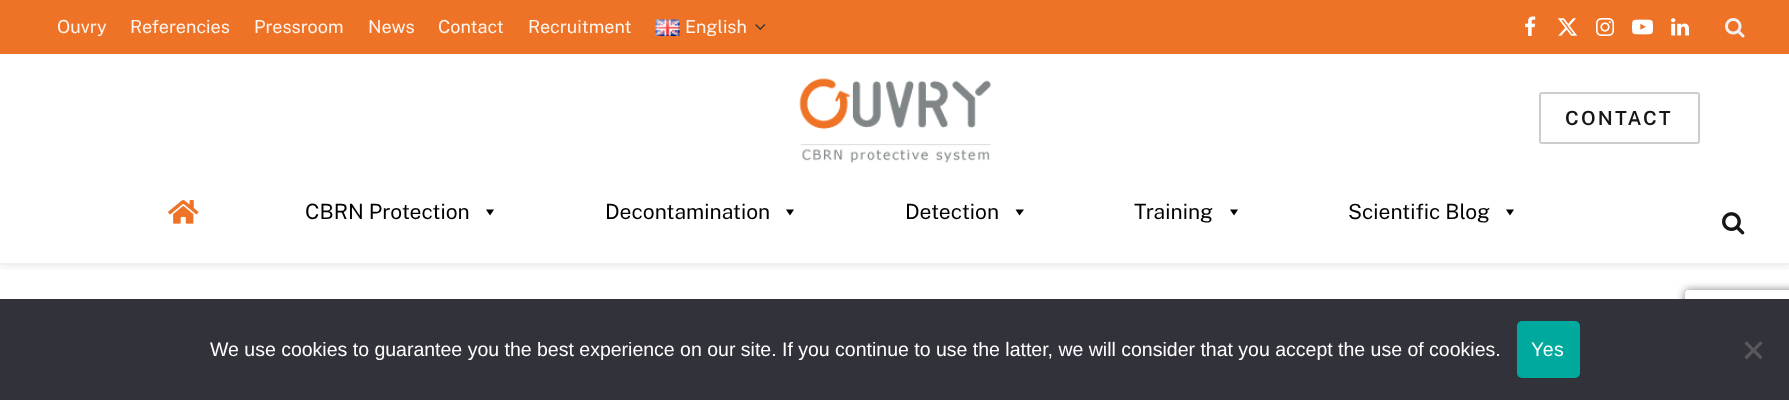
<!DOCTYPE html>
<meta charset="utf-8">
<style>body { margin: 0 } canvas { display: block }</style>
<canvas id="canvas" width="1789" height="400"></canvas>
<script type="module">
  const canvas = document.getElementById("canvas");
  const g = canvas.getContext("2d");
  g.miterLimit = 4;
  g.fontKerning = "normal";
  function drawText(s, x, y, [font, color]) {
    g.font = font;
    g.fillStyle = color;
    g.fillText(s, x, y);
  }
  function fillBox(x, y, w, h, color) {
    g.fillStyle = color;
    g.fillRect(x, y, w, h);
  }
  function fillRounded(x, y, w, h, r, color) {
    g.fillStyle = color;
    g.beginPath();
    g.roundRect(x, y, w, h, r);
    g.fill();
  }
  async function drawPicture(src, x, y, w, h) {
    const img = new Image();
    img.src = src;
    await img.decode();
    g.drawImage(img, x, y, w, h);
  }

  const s1 = ["18px Public Sans", "#FEF4EE"];
  const s2 = ["600 19.5px Public Sans", "#161616"];
  const s3 = ["21px Public Sans", "#000000"];
  const s4 = ["19.5px Liberation Sans", "#FFFFFF"];

  fillBox(0, 0, 1789, 400, "#FFFFFF");
  g.save();
  g.beginPath();
  g.rect(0, 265, 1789, 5);
  g.clip();
  g.fillStyle = "rgba(0, 0, 0, 0.05)";
  g.filter = "blur(3px)";
  g.beginPath();
  g.rect(0, 5, 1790, 264);
  g.fill();
  g.filter = "none";
  g.restore();
  fillBox(0, 0, 1789, 54, "#EE7326");
  drawText("Ouvry", 57, 33, s1);
  drawText("Referencies", 130, 33, s1);
  drawText("Pressroom", 254, 33, s1);
  drawText("News", 368, 33, s1);
  drawText("Contact", 438, 33, s1);
  drawText("Recruitment", 528, 33, s1);
  await drawPicture("pic1.png", 655, 19, 25, 17);
  drawText("English", 685, 33, s1);
  await drawPicture("pic2.png", 755, 24, 11, 6);
  await drawPicture("pic3.png", 1525, 16, 11, 20);
  await drawPicture("pic4.png", 1558, 18, 20, 18);
  await drawPicture("pic5.png", 1596, 18, 18, 18);
  await drawPicture("pic6.png", 1632, 19, 21, 16);
  await drawPicture("pic7.png", 1671, 18, 18, 18);
  await drawPicture("pic8.png", 1725, 18, 20, 20);
  await drawPicture("pic9.png", 799, 78, 193, 85);
  g.beginPath();
  g.roundRect(1540, 93, 159, 50, 2);
  g.strokeStyle = "rgba(0, 0, 0, 0.2)";
  g.lineWidth = 2;
  g.stroke();
  g.letterSpacing = "2.25px";
  drawText("CONTACT", 1565, 125, s2);
  fillBox(0, 263, 1789, 2, "#EFEFEF");
  await drawPicture("pic10.png", 168, 200, 31, 24);
  g.letterSpacing = "0px";
  drawText("CBRN Protection", 305, 219, s3);
  g.beginPath();
  g.moveTo(494, 209.5);
  g.lineTo(490, 215.5);
  g.lineTo(486, 209.5);
  g.closePath();
  g.fill();
  drawText("Decontamination", 605, 219, s3);
  g.beginPath();
  g.moveTo(794, 209.5);
  g.lineTo(790, 215.5);
  g.lineTo(786, 209.5);
  g.closePath();
  g.fill();
  drawText("Detection", 905, 219, s3);
  g.beginPath();
  g.moveTo(1024, 209.5);
  g.lineTo(1019.5, 215.5);
  g.lineTo(1015.5, 209.5);
  g.closePath();
  g.fill();
  drawText("Training", 1134, 219, s3);
  g.beginPath();
  g.moveTo(1238, 209.5);
  g.lineTo(1234, 215.5);
  g.lineTo(1230, 209.5);
  g.closePath();
  g.fill();
  drawText("Scientific Blog", 1348, 219, s3);
  g.beginPath();
  g.moveTo(1514, 209.5);
  g.lineTo(1510, 215.5);
  g.lineTo(1506, 209.5);
  g.closePath();
  g.fill();
  await drawPicture("pic11.png", 1722, 212, 23, 23);
  g.save();
  g.beginPath();
  g.moveTo(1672, 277);
  g.lineTo(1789, 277);
  g.lineTo(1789, 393);
  g.lineTo(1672, 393);
  g.closePath();
  g.moveTo(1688, 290);
  g.lineTo(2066, 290);
  g.bezierCurveTo(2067.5, 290, 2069, 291.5, 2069, 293);
  g.lineTo(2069, 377);
  g.bezierCurveTo(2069, 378.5, 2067.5, 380, 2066, 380);
  g.lineTo(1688, 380);
  g.bezierCurveTo(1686.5, 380, 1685, 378.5, 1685, 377);
  g.lineTo(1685, 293);
  g.bezierCurveTo(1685, 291.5, 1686.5, 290, 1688, 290);
  g.closePath();
  g.clip("evenodd");
  g.fillStyle = "#808080";
  g.filter = "blur(4px)";
  g.beginPath();
  g.roundRect(1685, 290, 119, 90, 3);
  g.fill();
  g.filter = "none";
  g.restore();
  fillBox(0, 299, 1789, 101, "#32323A");
  drawText("We use cookies to guarantee you the best experience on our site. If you continue to use the latter, we will consider that you accept the use of cookies.", 210, 356, s4);
  fillRounded(1517, 321, 63, 57, 5, "#00A99D");
  g.letterSpacing = "0.5px";
  drawText("Yes", 1531, 356, s4);
  g.fillStyle = "#59595D";
  g.beginPath();
  g.moveTo(1760.5, 341);
  g.lineTo(1762.5, 343.5);
  g.lineTo(1746.5, 359.5);
  g.lineTo(1744.5, 357);
  g.closePath();
  g.fill();
  g.beginPath();
  g.moveTo(1744.5, 343.5);
  g.lineTo(1746.5, 341);
  g.lineTo(1762.5, 357);
  g.lineTo(1760.5, 359.5);
  g.closePath();
  g.fill();
</script>
